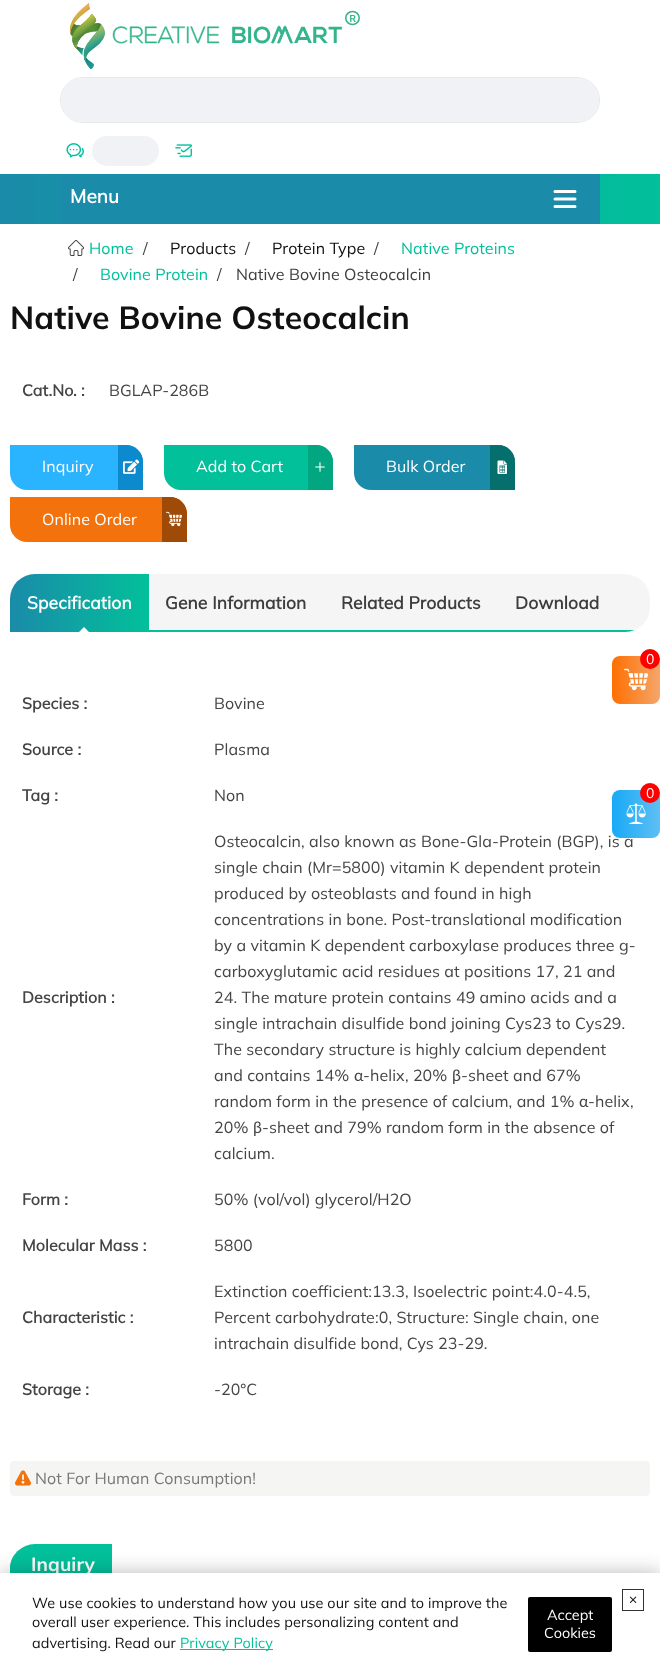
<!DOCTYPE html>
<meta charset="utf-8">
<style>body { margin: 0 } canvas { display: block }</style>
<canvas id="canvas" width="660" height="1676"></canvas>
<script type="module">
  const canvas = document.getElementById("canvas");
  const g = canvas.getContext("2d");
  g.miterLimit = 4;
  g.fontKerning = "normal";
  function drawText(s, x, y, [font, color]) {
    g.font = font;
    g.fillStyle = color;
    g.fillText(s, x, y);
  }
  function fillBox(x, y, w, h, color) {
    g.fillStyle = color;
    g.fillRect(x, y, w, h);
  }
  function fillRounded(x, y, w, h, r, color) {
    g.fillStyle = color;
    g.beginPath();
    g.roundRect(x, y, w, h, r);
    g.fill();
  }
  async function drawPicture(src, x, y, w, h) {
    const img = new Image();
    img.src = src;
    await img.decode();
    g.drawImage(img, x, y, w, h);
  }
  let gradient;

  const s1 = ["bold 19px 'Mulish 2'", "#FFFFFF"];
  const s2 = ["16px Mulish", "#02C09A"];
  const s3 = ["16px Mulish", "#3D3D3D"];
  const s4 = ["16px Mulish", "#111111"];
  const s5 = ["bold 32px Mulish", "#111111"];
  const s6 = ["bold 16px 'Mulish 2'", "#444444"];
  const s7 = ["16px Mulish", "#444444"];
  const s8 = ["16px Mulish", "#FFFFFF"];
  const s9 = ["bold 17.5px 'Mulish 2'", "#FFFFFF"];
  const s10 = ["bold 17.5px 'Mulish 2'", "#3D3D3D"];
  const s11 = ["16px Lato", "#444444"];
  const s12 = ["16px Mulish", "#787878"];
  const s13 = ["bold 19px Mulish", "#FFFFFF"];
  const s14 = ["14px Mulish", "#FFFFFF"];
  const s15 = ["14.4px Mulish", "#111111"];
  const s16 = ["14.4px Mulish", "#02C09A"];
  const s17 = ["200 14.4px Mulish", "#FFFFFF"];

  fillBox(0, 0, 660, 1676, "#FFFFFF");
  await drawPicture("pic1.png", 70, 3, 290, 66);
  g.beginPath();
  g.roundRect(60.5, 77.5, 539, 45, 22.5);
  g.strokeStyle = "#E8E8E8";
  g.stroke();
  gradient = g.createLinearGradient(61, 100, 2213, 100);
  gradient.addColorStop(0.25, "#F0F2F5");
  gradient.addColorStop(0.37, "#E6E8EB");
  gradient.addColorStop(0.63, "#F0F2F5");
  g.fillStyle = gradient;
  g.beginPath();
  g.roundRect(61, 78, 538, 44, 22);
  g.fill();
  await drawPicture("pic2.png", 66, 143, 18, 15);
  gradient = g.createLinearGradient(92, 151, 360, 151);
  gradient.addColorStop(0.25, "#F0F2F5");
  gradient.addColorStop(0.37, "#E6E8EB");
  gradient.addColorStop(0.63, "#F0F2F5");
  g.fillStyle = gradient;
  g.beginPath();
  g.roundRect(92, 136, 67, 30, 15);
  g.fill();
  await drawPicture("pic3.png", 175, 144, 17, 13);
  gradient = g.createLinearGradient(0, 199, 660, 199);
  gradient.addColorStop(0, "#1A8BA9");
  gradient.addColorStop(1, "#02C09A");
  g.fillStyle = gradient;
  g.fillRect(0, 174, 660, 50);
  fillBox(60, 174, 540, 50, "#1A8BA9");
  g.letterSpacing = "0.1px";
  drawText("Menu", 70, 203, s1);
  g.beginPath();
  g.moveTo(555, 206.5);
  g.lineTo(575, 206.5);
  g.moveTo(575, 199);
  g.lineTo(555, 199);
  g.moveTo(555, 191.5);
  g.lineTo(575, 191.5);
  g.strokeStyle = "#FFFFFF";
  g.lineWidth = 3;
  g.lineCap = "round";
  g.lineJoin = "round";
  g.stroke();
  await drawPicture("pic4.png", 68, 240, 16, 16);
  drawText("Home", 89, 254, s2);
  drawText("/", 143, 254, s3);
  drawText("Products", 170, 254, s4);
  drawText("/", 245, 254, s3);
  drawText("Protein Type", 272, 254, s4);
  drawText("/", 374, 254, s3);
  drawText("Native Proteins", 401, 254, s2);
  drawText("/", 73, 280, s3);
  drawText("Bovine Protein", 100, 280, s2);
  drawText("/", 217, 280, s3);
  drawText("Native Bovine Osteocalcin", 236, 280, s3);
  drawText("Native Bovine Osteocalcin", 10, 329, s5);
  drawText("Cat.No. :", 22, 396, s6);
  drawText("BGLAP-286B", 109, 396, s7);
  g.fillStyle = "#2AB3FF";
  g.beginPath();
  g.roundRect(10, 445, 133, 45, [0, 17, 0, 17]);
  g.fill();
  drawText("Inquiry", 42, 472, s8);
  g.fillStyle = "#0D89CE";
  g.beginPath();
  g.roundRect(118, 445, 25, 45, [0, 17, 0, 0]);
  g.fill();
  await drawPicture("pic5.png", 123, 459, 17, 15);
  g.fillStyle = "#02C09A";
  g.beginPath();
  g.roundRect(164, 445, 169, 45, [0, 17, 0, 17]);
  g.fill();
  drawText("Add to Cart", 196, 472, s8);
  g.fillStyle = "#02A681";
  g.beginPath();
  g.roundRect(308, 445, 25, 45, [0, 17, 0, 0]);
  g.fill();
  await drawPicture("pic6.png", 315, 462, 10, 10);
  g.fillStyle = "#1A8BA9";
  g.beginPath();
  g.roundRect(354, 445, 161, 45, [0, 17, 0, 17]);
  g.fill();
  drawText("Bulk Order", 386, 472, s8);
  g.fillStyle = "#056F6D";
  g.beginPath();
  g.roundRect(490, 445, 25, 45, [0, 17, 0, 0]);
  g.fill();
  await drawPicture("pic7.png", 497, 460, 10, 14);
  g.fillStyle = "#F3720C";
  g.beginPath();
  g.roundRect(10, 497, 177, 45, [0, 17, 0, 17]);
  g.fill();
  drawText("Online Order", 42, 525, s8);
  g.fillStyle = "#9F4A07";
  g.beginPath();
  g.roundRect(162, 497, 25, 45, [0, 17, 0, 0]);
  g.fill();
  await drawPicture("pic8.png", 166, 511, 16, 16);
  g.fillStyle = "#F5F5F5";
  g.beginPath();
  g.roundRect(10, 574, 640, 58, [25, 25, 25, 0]);
  g.fill();
  gradient = g.createLinearGradient(10, 603, 149, 603);
  gradient.addColorStop(0, "#1A8BA9");
  gradient.addColorStop(1, "#02C09A");
  g.fillStyle = gradient;
  g.beginPath();
  g.roundRect(10, 574, 139, 58, [25, 0, 0, 0]);
  g.fill();
  drawText("Specification", 27, 609, s9);
  g.beginPath();
  g.moveTo(89, 632);
  g.lineTo(79, 632);
  g.lineTo(84, 627);
  g.closePath();
  g.fill();
  drawText("Gene Information", 165, 609, s10);
  drawText("Related Products", 341, 609, s10);
  drawText("Download", 515, 609, s10);
  g.save();
  g.beginPath();
  g.roundRect(10, 574, 640, 58, [25, 25, 25, 0]);
  g.clip();
  fillBox(149, 630, 488, 2, "#02C09A");
  g.restore();
  drawText("Species :", 22, 709, s6);
  drawText("Bovine", 214, 709, s7);
  drawText("Source :", 22, 755, s6);
  drawText("Plasma", 214, 755, s7);
  drawText("Tag :", 22, 801, s6);
  drawText("Non", 214, 801, s7);
  drawText("Description :", 22, 1003, s6);
  drawText("Osteocalcin, also known as Bone-Gla-Protein (BGP), is a", 214, 847, s7);
  drawText("single chain (Mr=5800) vitamin K dependent protein", 214, 873, s7);
  drawText("produced by osteoblasts and found in high", 214, 899, s7);
  drawText("concentrations in bone. Post-translational modification", 214, 925, s7);
  drawText("by a vitamin K dependent carboxylase produces three g-", 214, 951, s7);
  drawText("carboxyglutamic acid residues at positions 17, 21 and", 214, 977, s7);
  drawText("24. The mature protein contains 49 amino acids and a", 214, 1003, s7);
  drawText("single intrachain disulfide bond joining Cys23 to Cys29.", 214, 1029, s7);
  drawText("The secondary structure is highly calcium dependent", 214, 1055, s7);
  drawText("and contains 14%", 214, 1081, s7);
  drawText("α", 354, 1081, s11);
  drawText("-helix, 20%", 363, 1081, s7);
  drawText("β", 452, 1081, s11);
  drawText("-sheet and 67%", 461, 1081, s7);
  drawText("random form in the presence of calcium, and 1%", 214, 1107, s7);
  drawText("α", 579, 1107, s11);
  drawText("-helix,", 588, 1107, s7);
  drawText("20%", 214, 1133, s7);
  drawText("β", 253, 1133, s11);
  drawText("-sheet and 79% random form in the absence of", 262, 1133, s7);
  drawText("calcium.", 214, 1159, s7);
  drawText("Form :", 22, 1205, s6);
  drawText("50% (vol/vol) glycerol/H2O", 214, 1205, s7);
  drawText("Molecular Mass :", 22, 1251, s6);
  drawText("5800", 214, 1251, s7);
  drawText("Characteristic :", 22, 1323, s6);
  drawText("Extinction coefficient:13.3, Isoelectric point:4.0-4.5,", 214, 1297, s7);
  drawText("Percent carbohydrate:0, Structure: Single chain, one", 214, 1323, s7);
  drawText("intrachain disulfide bond, Cys 23-29.", 214, 1349, s7);
  drawText("Storage :", 22, 1395, s6);
  drawText("-20°C", 214, 1395, s7);
  fillRounded(10, 1461, 640, 35, 4, "#F5F5F3");
  await drawPicture("pic9.png", 15, 1470, 16, 16);
  drawText("Not For Human Consumption!", 35, 1484, s12);
  g.fillStyle = "#02C09A";
  g.beginPath();
  g.roundRect(10, 1544, 102, 41, [25, 0, 0, 0]);
  g.fill();
  g.save();
  g.beginPath();
  g.moveTo(35, 1544);
  g.lineTo(633, 1544);
  g.bezierCurveTo(642.5, 1544, 650, 1551.5, 650, 1561);
  g.lineTo(650, 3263);
  g.bezierCurveTo(650, 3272.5, 642.5, 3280, 633, 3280);
  g.lineTo(27, 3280);
  g.bezierCurveTo(17.5, 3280, 10, 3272.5, 10, 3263);
  g.lineTo(10, 1569);
  g.bezierCurveTo(10, 1555, 21, 1544, 35, 1544);
  g.closePath();
  g.clip();
  fillBox(10, 1555, 4, 18, "#02C09A");
  g.restore();
  drawText("Inquiry", 31, 1571, s13);
  gradient = g.createLinearGradient(612, 680, 660, 680);
  gradient.addColorStop(0, "#FF6E01");
  gradient.addColorStop(1, "#F5A66A");
  g.fillStyle = gradient;
  g.beginPath();
  g.roundRect(612, 656, 48, 48, 8);
  g.fill();
  g.fillStyle = "#FF0000";
  g.beginPath();
  g.arc(650, 659, 10, 0, Math.PI * 2);
  g.fill();
  drawText("0", 646, 664, s14);
  await drawPicture("pic10.png", 624, 668, 24, 23);
  gradient = g.createLinearGradient(612, 814, 660, 814);
  gradient.addColorStop(0, "#18A9F7");
  gradient.addColorStop(1, "#5FBFF3");
  g.fillStyle = gradient;
  g.beginPath();
  g.roundRect(612, 790, 48, 48, 8);
  g.fill();
  g.fillStyle = "#FF0000";
  g.beginPath();
  g.arc(650, 793, 10, 0, Math.PI * 2);
  g.fill();
  drawText("0", 646, 798, s14);
  await drawPicture("pic11.png", 626, 803, 20, 21);
  g.fillStyle = "rgba(21, 21, 21, 0.3)";
  g.filter = "blur(10px)";
  g.beginPath();
  g.rect(1, 1573, 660, 103);
  g.fill();
  g.filter = "none";
  fillBox(0, 1573, 660, 103, "#FFFFFF");
  drawText("We use cookies to understand how you use our site and to improve the", 32, 1608, s15);
  drawText("overall user experience. This includes personalizing content and", 32, 1627, s15);
  drawText("advertising. Read our", 32, 1648, s15);
  fillBox(180, 1649, 93, 1, "#02C09A");
  drawText("Privacy Policy", 180, 1648, s16);
  fillRounded(528, 1597, 84, 55, 2, "#000000");
  g.letterSpacing = "0px";
  drawText("Accept", 547, 1620, s17);
  drawText("Cookies", 544, 1638, s17);
  g.strokeStyle = "#333333";
  g.lineWidth = 1;
  g.lineJoin = "miter";
  g.strokeRect(622.5, 1589.5, 21, 21);
  await drawPicture("pic12.png", 629, 1596, 8, 7);
</script>
